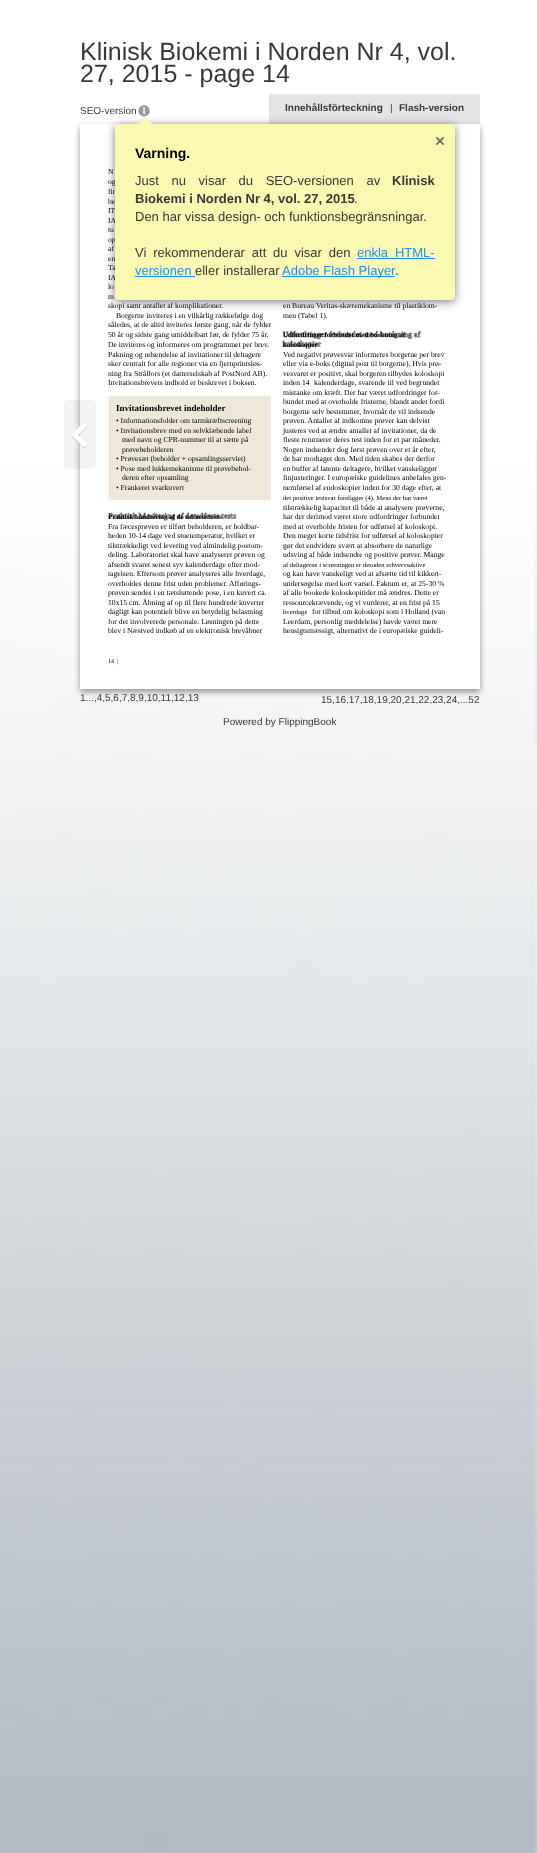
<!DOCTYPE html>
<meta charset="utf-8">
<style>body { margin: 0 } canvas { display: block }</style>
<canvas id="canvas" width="537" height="1853"></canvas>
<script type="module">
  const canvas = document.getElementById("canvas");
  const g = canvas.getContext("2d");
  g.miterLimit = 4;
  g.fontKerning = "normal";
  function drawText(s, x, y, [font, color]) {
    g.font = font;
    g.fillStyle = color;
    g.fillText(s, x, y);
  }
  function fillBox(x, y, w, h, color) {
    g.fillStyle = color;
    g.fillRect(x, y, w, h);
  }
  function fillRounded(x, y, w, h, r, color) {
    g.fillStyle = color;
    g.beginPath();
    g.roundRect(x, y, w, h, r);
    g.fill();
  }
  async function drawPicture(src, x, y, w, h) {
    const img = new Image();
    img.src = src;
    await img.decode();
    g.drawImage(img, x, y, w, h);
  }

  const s1 = ["25px Liberation Sans", "#383838"];
  const s2 = ["bold 10px Liberation Sans", "#383838"];
  const s3 = ["10px Liberation Sans", "#383838"];
  const s4 = ["7.65px Liberation Serif", "#000000"];
  const s5 = ["bold 14px Liberation Sans", "#000000"];
  const s6 = ["13px Liberation Sans", "#383838"];
  const s7 = ["bold 13px Liberation Sans", "#383838"];
  const s8 = ["13px Liberation Sans", "#1E90FF"];
  const s9 = ["bold 6.9px Liberation Serif", "#000000"];
  const s10 = ["bold 9px Liberation Serif", "#000000"];
  const s11 = ["6.65px Liberation Serif", "#000000"];
  const s12 = ["6px Liberation Serif", "#000000"];

  fillBox(0, 0, 537, 1853, "#FFFFFF");
  await drawPicture("pic1.png", 534, 228, 3, 515);
  drawText("Klinisk Biokemi i Norden Nr 4, vol.", 80, 60, s1);
  drawText("27, 2015 - page 14", 80, 82, s1);
  await drawPicture("pic5.png", 0, 228, 537, 1625);
  g.fillStyle = "rgba(0, 0, 0, 0.4)";
  g.filter = "blur(3px)";
  g.beginPath();
  g.rect(80, 127, 400, 565);
  g.fill();
  g.filter = "none";
  fillBox(80, 124, 400, 565, "#FFFFFF");
  fillBox(269, 94, 211, 30, "rgba(0, 0, 0, 0.1)");
  drawText("Innehållsförteckning", 285, 111, s2);
  drawText("|", 390, 111, s3);
  drawText("Flash-version", 399, 111, s2);
  drawText("SEO-version", 80, 114, s3);
  await drawPicture("pic2.png", 138, 105, 12, 12);
  g.fillStyle = "rgba(0, 0, 0, 0.5)";
  g.filter = "blur(5px)";
  g.beginPath();
  g.roundRect(115, 126, 340, 176, 4);
  g.fill();
  g.filter = "none";
  drawText("og", 108, 184, s4);
  drawText("fir", 108, 194, s4);
  drawText("be", 108, 204, s4);
  drawText("IT", 108, 213, s4);
  drawText("IA", 108, 223, s4);
  drawText("op", 108, 242, s4);
  drawText("en", 108, 261, s4);
  drawText("Ta", 108, 270, s4);
  drawText("IA", 108, 280, s4);
  fillRounded(115, 124, 340, 176, 4, "#FAF8B1");
  g.beginPath();
  g.moveTo(155, 127);
  g.lineTo(135, 127);
  g.lineTo(145, 117);
  g.closePath();
  g.fill();
  await drawPicture("pic3.png", 436, 137, 8, 8);
  drawText("Varning.", 135, 158, s5);
  g.wordSpacing = "9px";
  drawText("Just nu visar du SEO-versionen av", 135, 185, s6);
  g.wordSpacing = "0px";
  drawText("Klinisk", 392, 185, s7);
  drawText("Biokemi i Norden Nr 4, vol. 27, 2015", 135, 203, s7);
  drawText(".", 354, 203, s6);
  drawText("Den har vissa design- och funktionsbegränsningar.", 135, 221, s6);
  g.wordSpacing = "3.25px";
  drawText("Vi rekommenderar att du visar den", 135, 257, s6);
  drawText("enkla HTML-", 357, 257, s8);
  fillBox(357, 258, 78, 1, "#1E90FF");
  g.wordSpacing = "0px";
  drawText("versionen", 135, 275, s8);
  fillBox(135, 276, 60, 1, "#1E90FF");
  drawText("eller installerar", 195, 275, s6);
  fillBox(282, 276, 113, 1, "#1E90FF");
  drawText("Adobe Flash Player", 282, 275, s8);
  drawText(".", 395, 275, s6);
  drawText("N", 108, 174, s4);
  drawText("tu", 108, 232, s4);
  drawText("af", 108, 251, s4);
  drawText("lo", 108, 289, s4);
  drawText("m", 108, 299, s4);
  drawText("skopi samt antallet af komplikationer.", 108, 308, s4);
  drawText("en Bureau Veritas-skæremekanisme til plastiklom-", 283, 308, s4);
  drawText("Borgerne inviteres i en vilkårlig rækkefølge dog", 116, 318, s4);
  drawText("men (Tabel 1).", 283, 318, s4);
  drawText("således, at de altid inviteres første gang, når de fylder", 108, 327, s4);
  await drawPicture("pic4.png", 108, 330, 314, 191);
  drawText("50 år og sidste gang umiddelbart før, de fylder 75 år.", 108, 337, s4);
  drawText("Udfordringer forbundet med bookning af", 283, 337, s9);
  drawText("De inviteres og informeres om programmet per brev.", 108, 347, s4);
  drawText("koloskopier", 283, 347, s9);
  drawText("Pakning og udsendelse af invitationer til deltagere", 108, 357, s4);
  drawText("Ved negativt prøvesvar informeres borgerne per brev", 283, 357, s4);
  drawText("sker centralt for alle regioner via en fjernprintsløs-", 108, 366, s4);
  drawText("eller via e-boks (digital post til borgerne). Hvis prø-", 283, 366, s4);
  drawText("ning fra Strålfors (et datterselskab af PostNord AB).", 108, 376, s4);
  drawText("vesvaret er positivt, skal borgeren tilbydes koloskopi", 283, 376, s4);
  drawText("Invitationsbrevets indhold er beskrevet i boksen.", 108, 385, s4);
  drawText("inden 14", 283, 385, s4);
  drawText("kalenderdage, svarende til ved begrundet", 314, 385, s4);
  drawText("mistanke om kræft. Der har været udfordringer for-", 283, 395, s4);
  drawText("bundet med at overholde fristerne, blandt andet fordi", 283, 404, s4);
  drawText("Invitationsbrevet indeholder", 116, 411, s10);
  drawText("borgerne selv bestemmer, hvornår de vil indsende", 283, 414, s4);
  drawText("• Informationsfolder om tarmkræftscreening", 116, 423, s4);
  drawText("prøven. Antallet af indkomne prøver kan delvist", 283, 423, s4);
  drawText("• Invitationsbrev med en selvklæbende label", 116, 433, s4);
  drawText("justeres ved at ændre antallet af invitationer, da de", 283, 433, s4);
  drawText("med navn og CPR-nummer til at sætte på", 122, 442, s4);
  drawText("fleste returnerer deres test inden for et par måneder.", 283, 442, s4);
  drawText("prøvebeholderen", 122, 452, s4);
  drawText("Nogen indsender dog først prøven over et år efter,", 283, 452, s4);
  drawText("• Prøvesæt (beholder + opsamlingsserviet)", 116, 461, s4);
  drawText("de har modtaget den. Med tiden skabes der derfor", 283, 461, s4);
  drawText("• Pose med lukkemekanisme til prøvebehol-", 116, 471, s4);
  drawText("en buffer af latente deltagere, hvilket vanskeliggør", 283, 471, s4);
  drawText("deren efter opsamling", 122, 480, s4);
  drawText("finjusteringer. I europæiske guidelines anbefales gen-", 283, 480, s4);
  drawText("• Frankeret svarkuvert", 116, 490, s4);
  drawText("nemførsel af endoskopier inden for 30 dage efter, at", 283, 490, s4);
  drawText("det positive testsvar foreligger (4). Mens der har været", 283, 500, s11);
  drawText("tilstrækkelig kapacitet til både at analysere prøverne,", 283, 510, s4);
  drawText("Praktisk håndtering af de udførte tests", 108, 519, s9);
  drawText("har der derimod været store udfordringer forbundet", 283, 519, s4);
  drawText("Fra fæcesprøven er tilført beholderen, er holdbar-", 108, 529, s4);
  drawText("med at overholde fristen for udførsel af koloskopi.", 283, 529, s4);
  drawText("heden 10-14 dage ved stuetemperatur, hvilket er", 108, 538, s4);
  drawText("Den meget korte tidsfrist for udførsel af koloskopier", 283, 538, s4);
  drawText("tilstrækkeligt ved levering ved almindelig postom-", 108, 548, s4);
  drawText("gør det endvidere svært at absorbere de naturlige", 283, 548, s4);
  drawText("deling. Laboratoriet skal have analyseret prøven og", 108, 557, s4);
  drawText("udsving af både indsendte og positive prøver. Mange", 283, 557, s4);
  drawText("afsendt svaret senest syv kalenderdage efter mod-", 108, 567, s4);
  drawText("af deltagerne i screeningen er desuden erhvervsaktive", 283, 567, s11);
  drawText("tagelsen. Eftersom prøver analyseres alle hverdage,", 108, 576, s4);
  drawText("og kan have vanskeligt ved at afsætte tid til kikkert-", 283, 576, s4);
  drawText("overholdes denne frist uden problemer. Afførings-", 108, 586, s4);
  drawText("undersøgelse med kort varsel. Faktum er, at 25-30 %", 283, 586, s4);
  drawText("prøven sendes i en tætsluttende pose, i en kuvert ca.", 108, 595, s4);
  drawText("af alle bookede koloskopitider må ændres. Dette er", 283, 595, s4);
  drawText("10x15 cm. Åbning af op til flere hundrede kuverter", 108, 605, s4);
  drawText("ressourcekrævende, og vi vurderer, at en frist på 15", 283, 605, s4);
  drawText("dagligt kan potentielt blive en betydelig belastning", 108, 614, s4);
  drawText("hverdage", 283, 614, s11);
  drawText("for tilbud om koloskopi som i Holland (van", 312, 614, s4);
  drawText("for det involverede personale. Løsningen på dette", 108, 624, s4);
  drawText("Leerdam, personlig meddelelse) havde været mere", 283, 624, s4);
  drawText("blev i Næstved indkøb af en elektronisk brevåbner", 108, 633, s4);
  drawText("hensigtsmæssigt, alternativt de i europæiske guideli-", 283, 633, s4);
  drawText("14 |", 108, 663, s12);
  drawText("1...,4,5,6,7,8,9,10,11,12,13", 80, 701, s3);
  drawText("15,16,17,18,19,20,21,22,23,24,...52", 321, 703, s3);
  drawText("Powered by FlippingBook", 223, 725, s3);
  await drawPicture("pic6.png", 64, 400, 32, 69);
</script>
